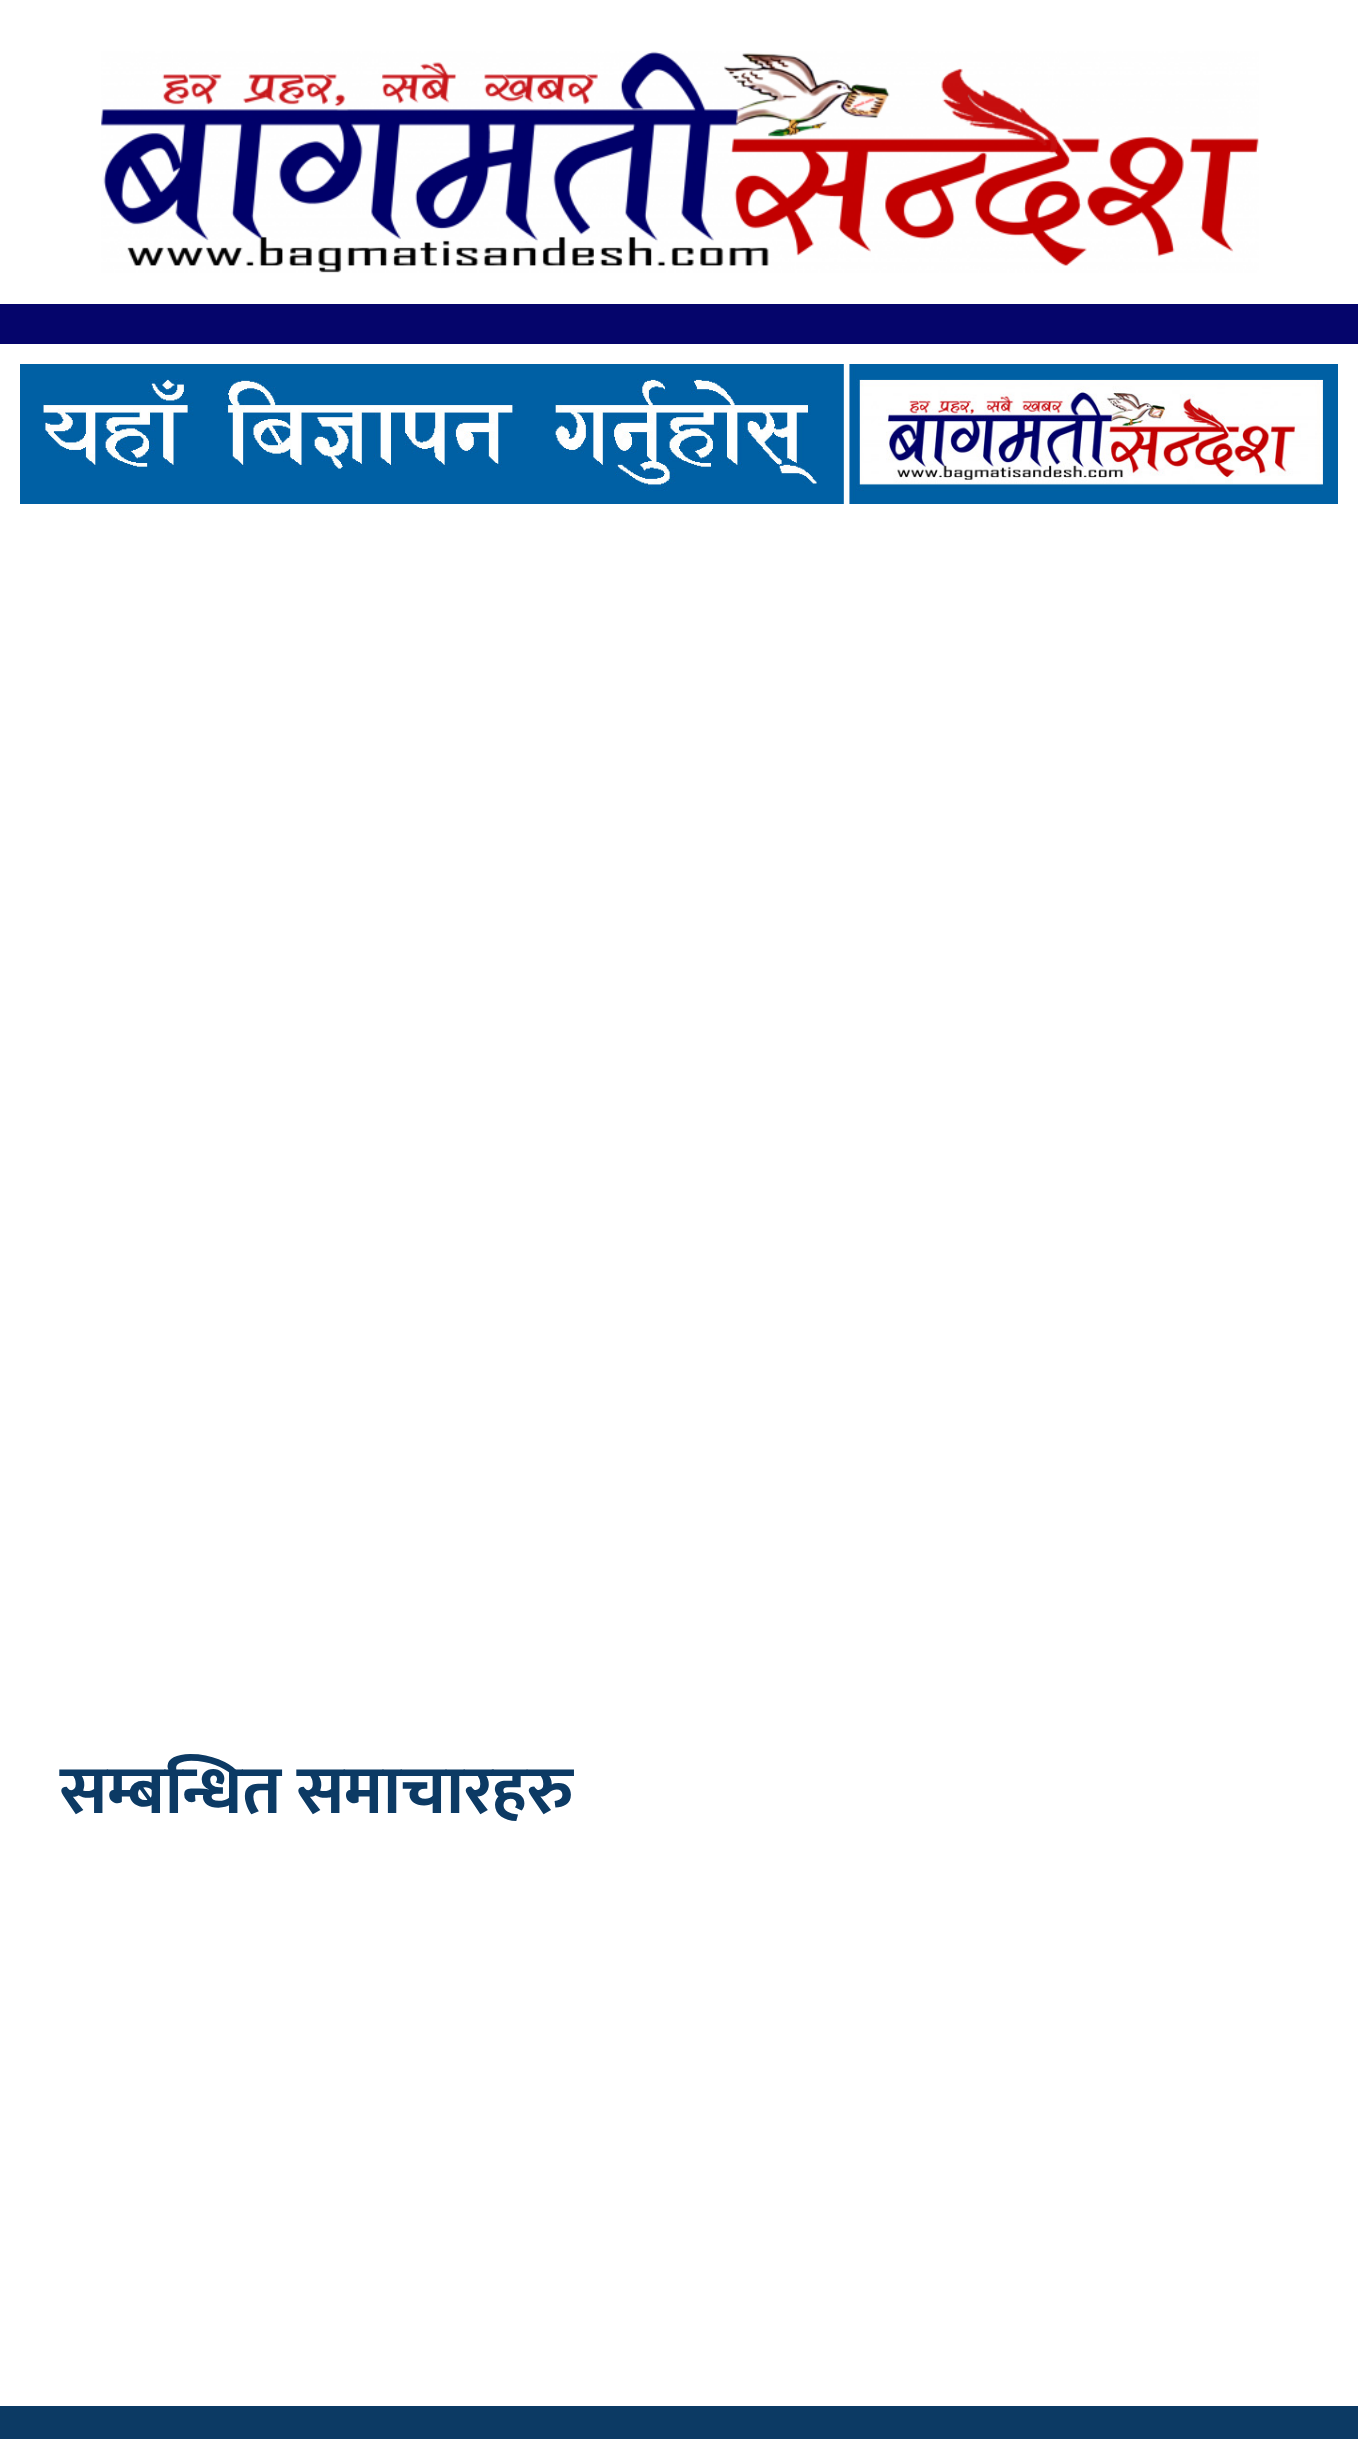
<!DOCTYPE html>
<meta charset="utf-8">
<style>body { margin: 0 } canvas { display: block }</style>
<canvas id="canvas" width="1358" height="2439"></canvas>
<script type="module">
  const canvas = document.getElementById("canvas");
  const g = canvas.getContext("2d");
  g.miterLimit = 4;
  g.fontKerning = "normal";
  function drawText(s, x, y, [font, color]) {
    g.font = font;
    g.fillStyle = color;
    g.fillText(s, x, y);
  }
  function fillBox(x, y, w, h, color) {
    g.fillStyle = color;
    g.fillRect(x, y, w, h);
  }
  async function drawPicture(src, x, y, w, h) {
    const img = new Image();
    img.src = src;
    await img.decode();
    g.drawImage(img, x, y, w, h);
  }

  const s1 = ["bold 68px Mukta", "#0C3A64"];

  fillBox(0, 0, 1358, 2439, "#FFFFFF");
  await drawPicture("pic1.png", 101, 51, 1158, 222);
  fillBox(0, 304, 1358, 40, "#05056B");
  await drawPicture("pic2.png", 20, 364, 1318, 140);
  drawText("सम्बन्धित समाचारहरु", 60, 1813, s1);
  fillBox(0, 2406, 1358, 33, "#0C3A64");
</script>
